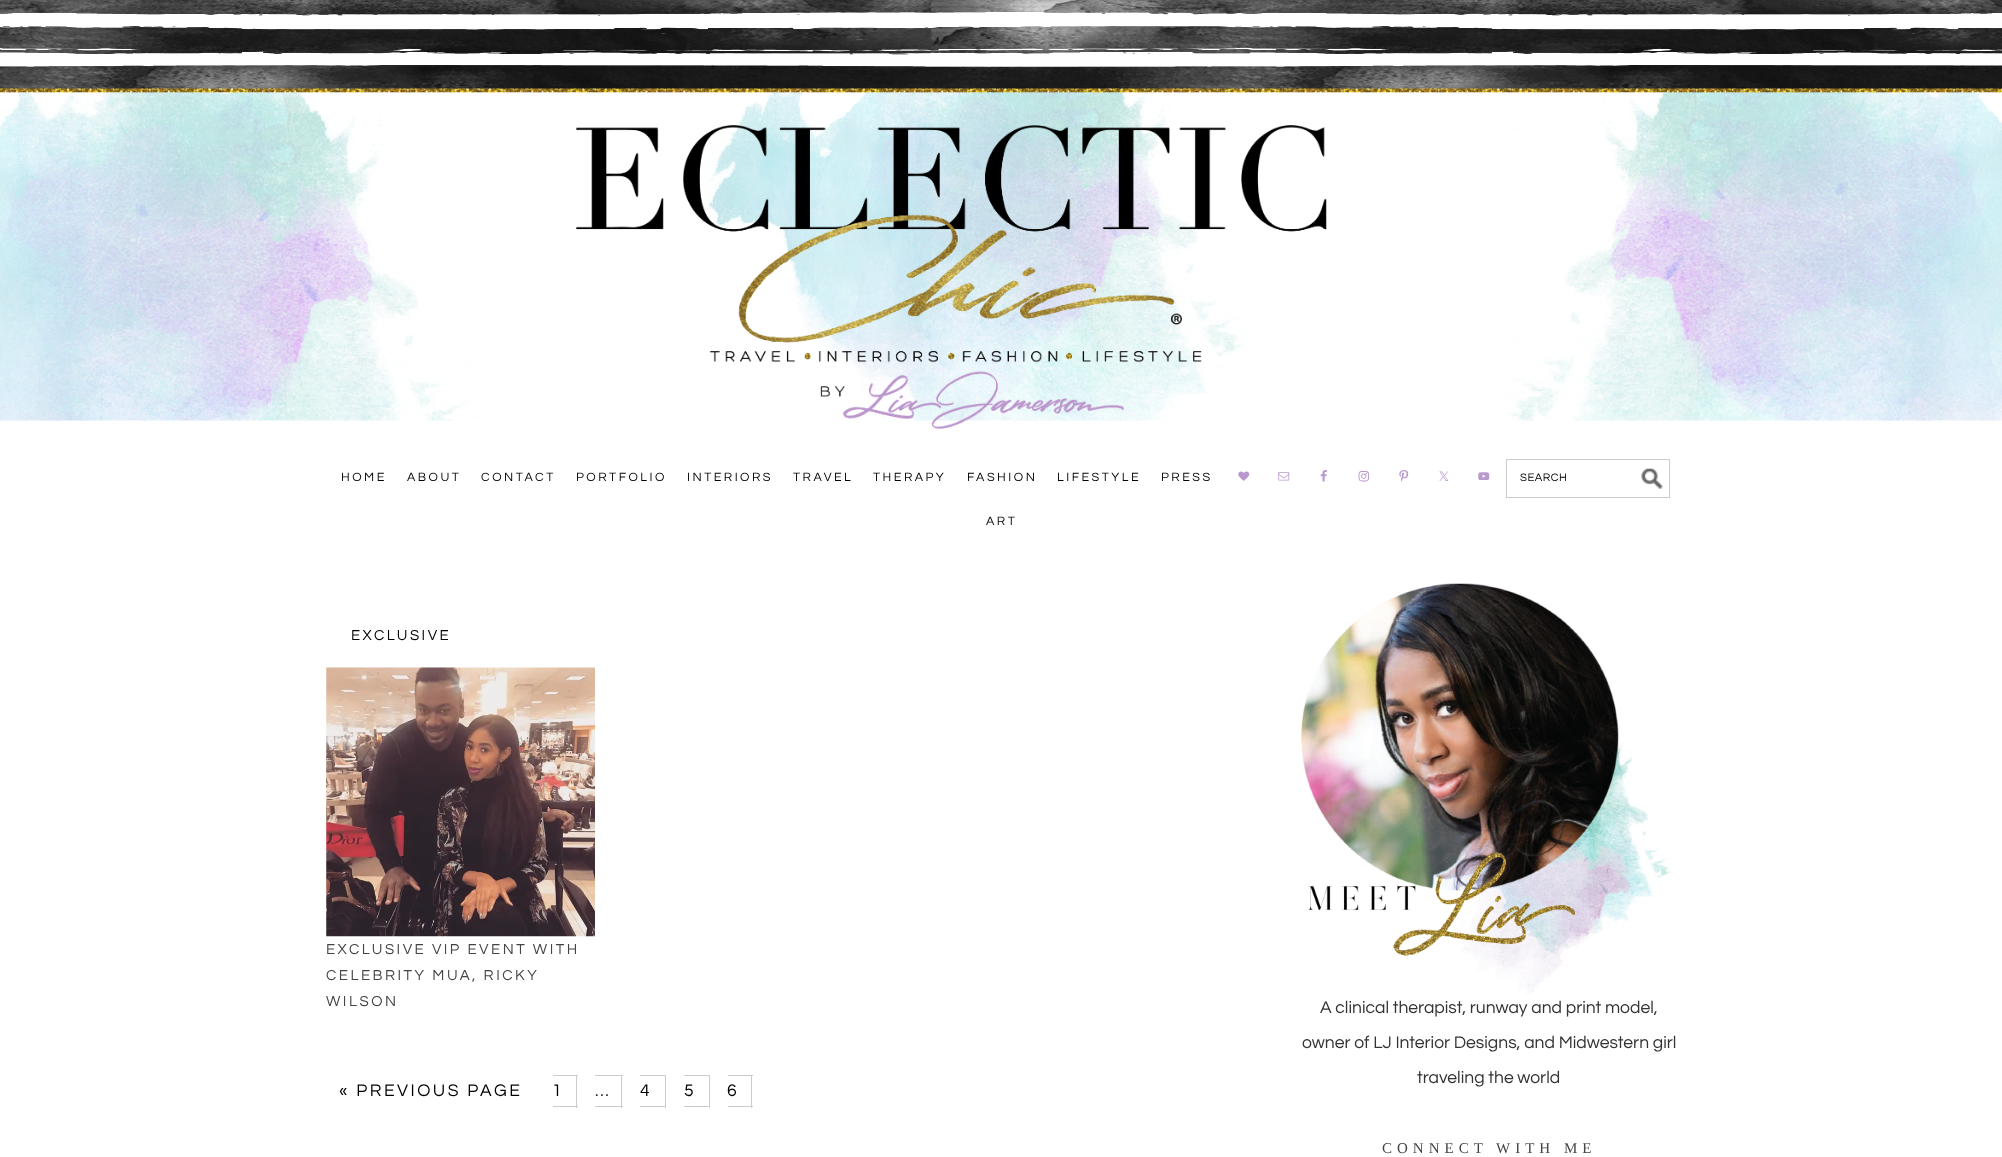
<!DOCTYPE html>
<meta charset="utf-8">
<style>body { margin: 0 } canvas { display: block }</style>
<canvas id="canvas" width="2002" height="1157"></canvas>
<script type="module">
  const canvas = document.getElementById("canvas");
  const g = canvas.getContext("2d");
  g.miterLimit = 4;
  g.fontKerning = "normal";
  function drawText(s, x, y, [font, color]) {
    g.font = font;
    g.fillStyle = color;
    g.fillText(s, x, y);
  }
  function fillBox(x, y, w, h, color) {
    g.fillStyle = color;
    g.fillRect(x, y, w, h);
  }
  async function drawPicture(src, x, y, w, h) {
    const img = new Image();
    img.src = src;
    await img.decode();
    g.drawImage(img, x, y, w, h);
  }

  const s1 = ["12.5px Questrial", "#000000"];
  const s2 = ["11.25px Questrial", "#000000"];
  const s3 = ["15px Questrial", "#000000"];
  const s4 = ["15px Questrial", "#444444"];
  const s5 = ["17.5px Questrial", "#000000"];
  const s6 = ["17.5px Questrial", "#333333"];
  const s7 = ["15px Liberation Serif", "#444444"];

  fillBox(0, 0, 2002, 1157, "#FFFFFF");
  await drawPicture("pic1.png", 0, 0, 2002, 421);
  await drawPicture("pic2.png", 576, 125, 751, 304);
  g.letterSpacing = "2.5px";
  drawText("HOME", 341, 481, s1);
  drawText("ABOUT", 407, 481, s1);
  drawText("CONTACT", 481, 481, s1);
  drawText("PORTFOLIO", 576, 481, s1);
  drawText("INTERIORS", 687, 481, s1);
  drawText("TRAVEL", 793, 481, s1);
  drawText("THERAPY", 873, 481, s1);
  drawText("FASHION", 967, 481, s1);
  drawText("LIFESTYLE", 1057, 481, s1);
  drawText("PRESS", 1161, 481, s1);
  await drawPicture("pic3.png", 1238, 471, 12, 10);
  await drawPicture("pic4.png", 1278, 472, 12, 9);
  await drawPicture("pic5.png", 1320, 470, 7, 12);
  await drawPicture("pic6.png", 1358, 471, 11, 11);
  await drawPicture("pic7.png", 1399, 470, 10, 12);
  await drawPicture("pic8.png", 1439, 471, 10, 10);
  await drawPicture("pic9.png", 1478, 472, 12, 9);
  await drawPicture("pic10.png", 1641, 468, 22, 21);
  g.strokeStyle = "#CCCCCC";
  g.strokeRect(1506.5, 459.5, 163, 38);
  g.letterSpacing = "0.5px";
  drawText("SEARCH", 1520, 481, s2);
  g.letterSpacing = "2.5px";
  drawText("ART", 986, 525, s1);
  drawText("EXCLUSIVE", 351, 640, s3);
  await drawPicture("pic11.png", 326, 667, 269, 270);
  drawText("EXCLUSIVE VIP EVENT WITH", 326, 954, s4);
  drawText("CELEBRITY MUA, RICKY", 326, 980, s4);
  drawText("WILSON", 326, 1006, s4);
  drawText("« PREVIOUS PAGE", 339, 1096, s5);
  drawText("1", 552, 1096, s5);
  fillBox(553, 1075, 25, 1, "#CCCCCC");
  fillBox(576, 1075, 1, 33, "#CCCCCC");
  fillBox(553, 1106, 25, 1, "#CCCCCC");
  g.letterSpacing = "0px";
  drawText("…", 595, 1096, s6);
  fillBox(595, 1075, 28, 1, "#CCCCCC");
  fillBox(621, 1075, 1, 33, "#CCCCCC");
  fillBox(595, 1106, 28, 1, "#CCCCCC");
  g.letterSpacing = "2.5px";
  drawText("4", 640, 1096, s5);
  fillBox(640, 1075, 26, 1, "#CCCCCC");
  fillBox(665, 1075, 1, 33, "#CCCCCC");
  fillBox(640, 1106, 26, 1, "#CCCCCC");
  drawText("5", 684, 1096, s5);
  fillBox(684, 1075, 26, 1, "#CCCCCC");
  fillBox(709, 1075, 1, 33, "#CCCCCC");
  fillBox(684, 1106, 26, 1, "#CCCCCC");
  drawText("6", 727, 1096, s5);
  fillBox(728, 1075, 25, 1, "#CCCCCC");
  fillBox(751, 1075, 1, 33, "#CCCCCC");
  fillBox(728, 1106, 25, 1, "#CCCCCC");
  await drawPicture("pic12.png", 1301, 583, 371, 411);
  g.letterSpacing = "0px";
  drawText("A clinical therapist, runway and print model,", 1320, 1013, s6);
  drawText("owner of LJ Interior Designs, and Midwestern girl", 1302, 1048, s6);
  drawText("traveling the world", 1417, 1083, s6);
  g.letterSpacing = "5px";
  drawText("CONNECT WITH ME", 1382, 1153, s7);
</script>
